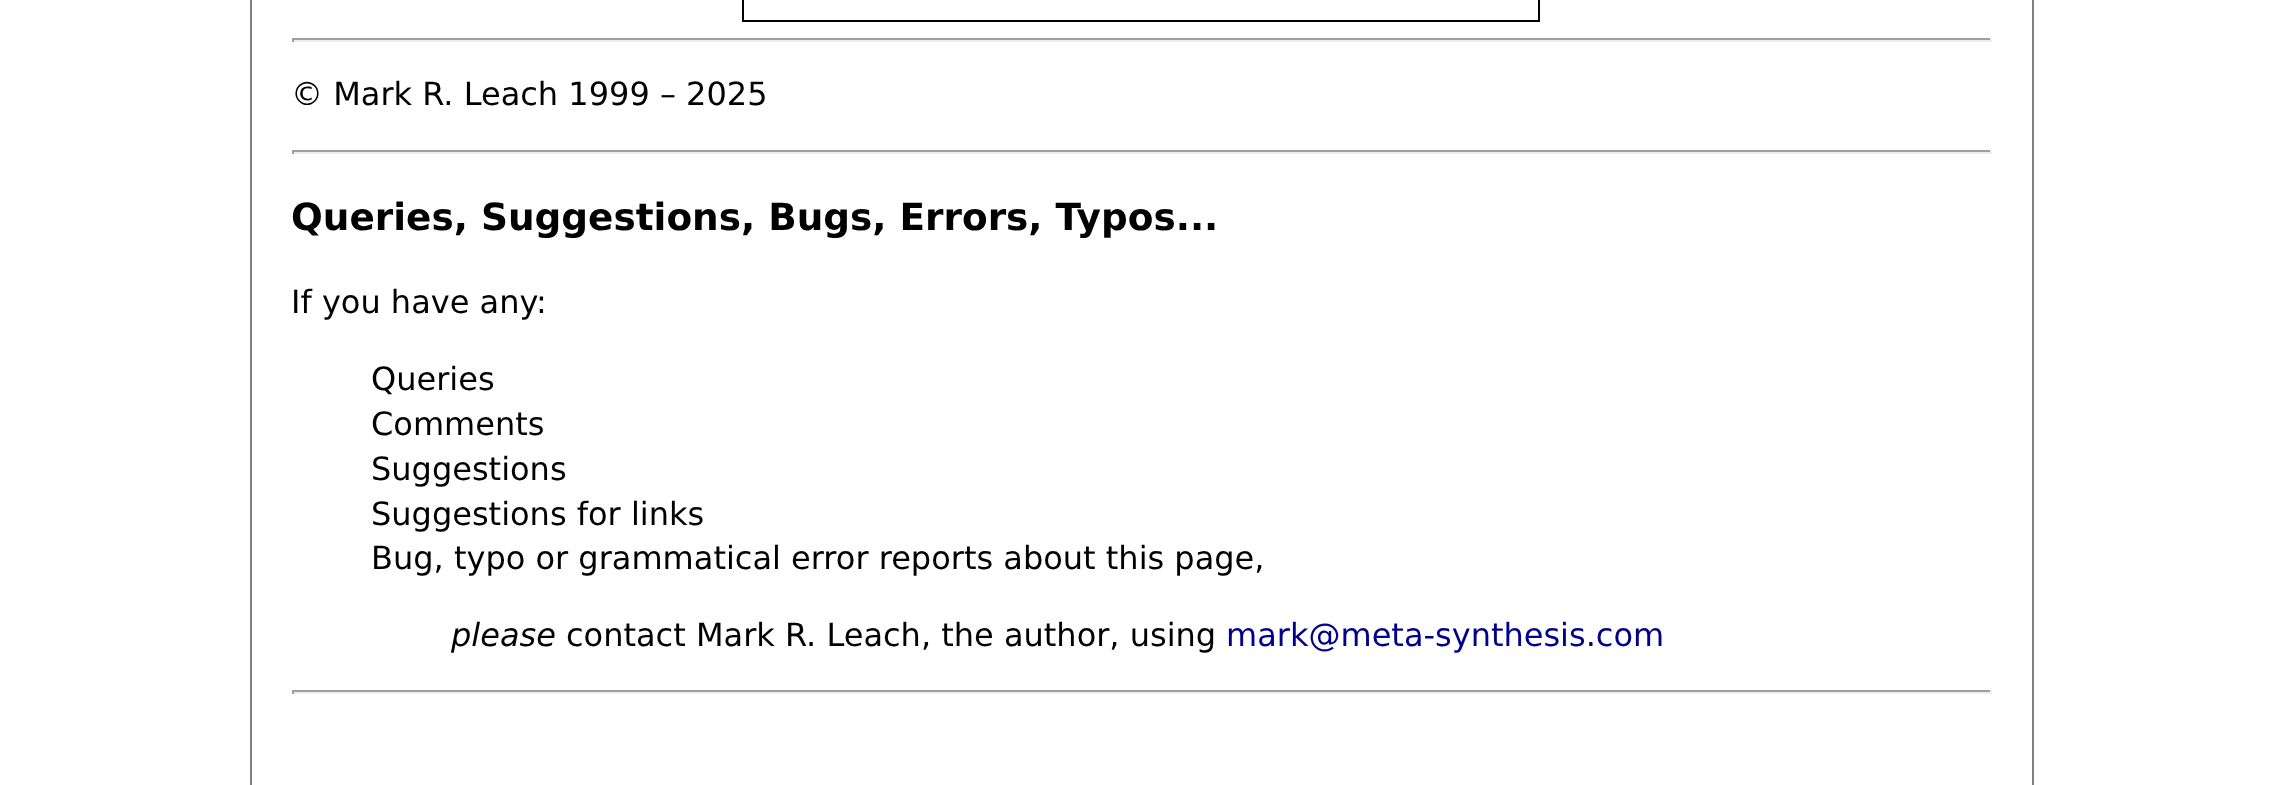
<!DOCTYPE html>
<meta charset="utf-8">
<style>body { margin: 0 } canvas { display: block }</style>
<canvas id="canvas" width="2282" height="785"></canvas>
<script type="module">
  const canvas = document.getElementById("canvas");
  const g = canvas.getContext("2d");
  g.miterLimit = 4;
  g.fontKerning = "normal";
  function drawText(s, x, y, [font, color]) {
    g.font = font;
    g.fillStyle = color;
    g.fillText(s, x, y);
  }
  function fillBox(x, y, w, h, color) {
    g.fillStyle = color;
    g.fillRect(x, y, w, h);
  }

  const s1 = ["32px DejaVu Sans", "#000000"];
  const s2 = ["bold 37.4px DejaVu Sans", "#000000"];
  const s3 = ["italic 32px DejaVu Sans", "#000000"];
  const s4 = ["32px DejaVu Sans", "#00008B"];

  fillBox(0, 0, 2282, 785, "#FFFFFF");
  g.strokeStyle = "#808080";
  g.lineWidth = 2;
  g.strokeRect(251, -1, 1782, 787);
  fillBox(742, 0, 798, 22, "#000000");
  fillBox(744, 0, 794, 20, "#FFFFFF");
  fillBox(292, 38, 1700, 2, "#9F9F9F");
  fillBox(1990, 38, 2, 4, "#EEEEEE");
  fillBox(292, 40, 1700, 2, "#EEEEEE");
  fillBox(292, 38, 2, 4, "#9F9F9F");
  drawText("© Mark R. Leach 1999 – 2025", 291, 105, s1);
  fillBox(292, 150, 1700, 2, "#9F9F9F");
  fillBox(1990, 150, 2, 4, "#EEEEEE");
  fillBox(292, 152, 1700, 2, "#EEEEEE");
  fillBox(292, 150, 2, 4, "#9F9F9F");
  drawText("Queries,", 291, 230, s2);
  drawText("Suggestions, Bugs, Errors, Typos...", 481, 230, s2);
  drawText("If you have any:", 291, 313, s1);
  drawText("Queries", 371, 390, s1);
  drawText("Comments", 371, 435, s1);
  drawText("Suggestions", 371, 480, s1);
  drawText("Suggestions for links", 371, 525, s1);
  drawText("Bug, typo or grammatical error reports about this page,", 371, 569, s1);
  drawText("please", 451, 646, s3);
  drawText("contact Mark R. Leach, the author, using", 566, 646, s1);
  drawText("mark@meta-synthesis.com", 1226, 646, s4);
  fillBox(292, 690, 1700, 2, "#9F9F9F");
  fillBox(1990, 690, 2, 4, "#EEEEEE");
  fillBox(292, 692, 1700, 2, "#EEEEEE");
  fillBox(292, 690, 2, 4, "#9F9F9F");
</script>
